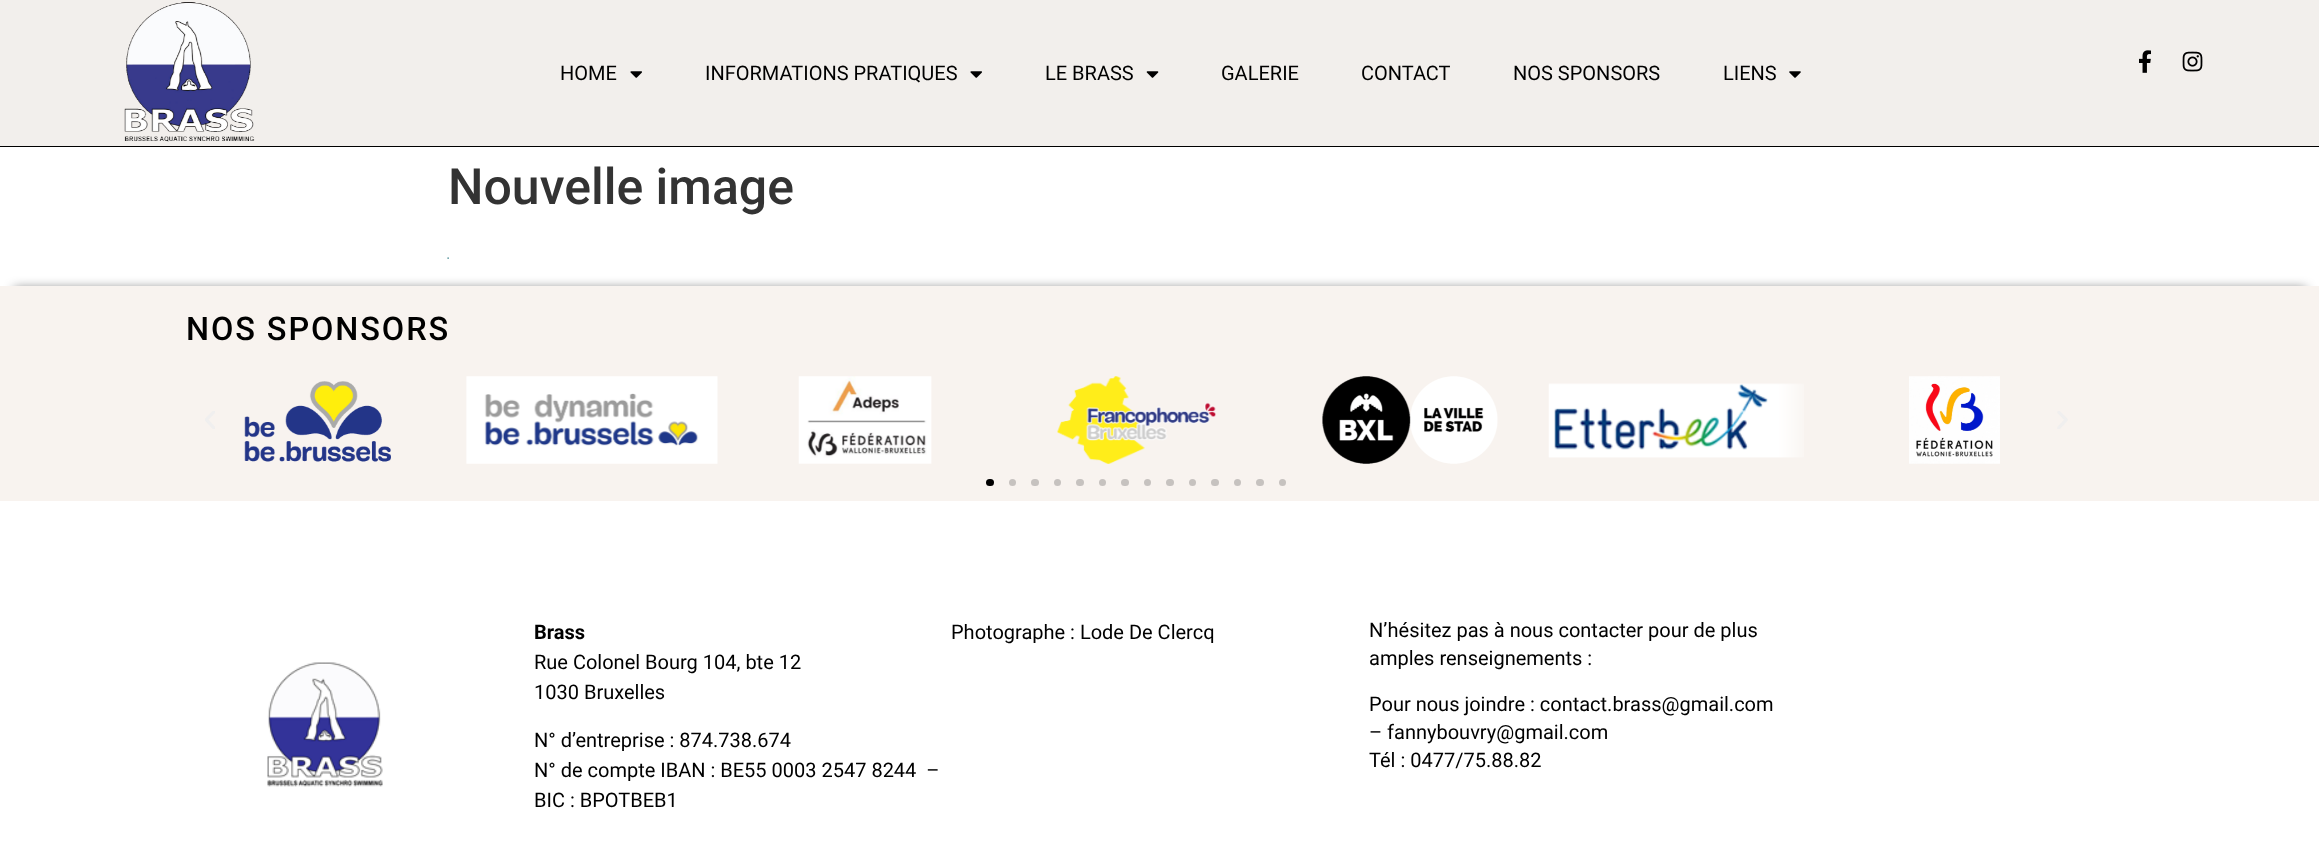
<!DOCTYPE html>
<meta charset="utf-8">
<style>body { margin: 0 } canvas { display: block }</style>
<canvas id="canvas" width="2319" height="860"></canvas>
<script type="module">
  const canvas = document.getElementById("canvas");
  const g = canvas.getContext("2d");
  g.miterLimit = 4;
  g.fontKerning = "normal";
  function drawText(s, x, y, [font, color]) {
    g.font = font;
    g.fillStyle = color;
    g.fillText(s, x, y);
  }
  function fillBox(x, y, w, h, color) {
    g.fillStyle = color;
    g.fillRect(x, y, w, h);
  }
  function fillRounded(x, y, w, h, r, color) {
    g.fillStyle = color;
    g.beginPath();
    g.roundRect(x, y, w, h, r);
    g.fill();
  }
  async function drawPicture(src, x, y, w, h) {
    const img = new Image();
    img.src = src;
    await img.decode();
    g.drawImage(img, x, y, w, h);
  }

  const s1 = ["20px Roboto", "#000000"];
  const s2 = ["500 50px Roboto", "#333333"];
  const s3 = ["500 32.5px Roboto", "#000000"];
  const s4 = ["bold 20px Roboto", "#000000"];

  fillBox(0, 0, 2319, 860, "#FFFFFF");
  fillBox(0, 0, 2319, 146, "#F2EFEC");
  fillBox(0, 146, 2319, 1, "#000000");
  await drawPicture("pic1.png", 124, 2, 131, 140);
  drawText("HOME", 560, 80, s1);
  await drawPicture("pic2.png", 630, 71, 12, 7);
  drawText("INFORMATIONS PRATIQUES", 705, 80, s1);
  await drawPicture("pic2.png", 970, 71, 12, 7);
  drawText("LE BRASS", 1045, 80, s1);
  await drawPicture("pic3.png", 1146, 71, 13, 7);
  drawText("GALERIE", 1221, 80, s1);
  drawText("CONTACT", 1361, 80, s1);
  drawText("NOS SPONSORS", 1513, 80, s1);
  drawText("LIENS", 1723, 80, s1);
  await drawPicture("pic4.png", 1789, 71, 12, 7);
  await drawPicture("pic5.png", 2139, 50, 12, 23);
  await drawPicture("pic6.png", 2182, 51, 21, 21);
  drawText("Nouvelle image", 448, 204, s2);
  await drawPicture("pic7.png", 447, 257, 2, 2);
  g.fillStyle = "rgba(0, 0, 0, 0.5)";
  g.filter = "blur(5.5px)";
  g.beginPath();
  g.rect(14, 288, 2292, 187);
  g.fill();
  g.filter = "none";
  fillBox(0, 286, 2319, 215, "#F8F3EF");
  g.letterSpacing = "1.9px";
  drawText("NOS SPONSORS", 186, 340, s3);
  await drawPicture("pic8.png", 205, 411, 10, 18);
  await drawPicture("pic9.png", 244, 381, 147, 81);
  await drawPicture("pic10.png", 466, 376, 252, 88);
  await drawPicture("pic11.png", 798, 376, 134, 88);
  await drawPicture("pic12.png", 1057, 376, 159, 88);
  await drawPicture("pic13.png", 1322, 376, 176, 88);
  await drawPicture("pic14.png", 1548, 383, 256, 75);
  await drawPicture("pic15.png", 1909, 376, 91, 88);
  await drawPicture("pic16.png", 2057, 411, 11, 18);
  fillRounded(986, 479, 8, 7, 3.5, "#000000");
  g.fillStyle = "#C6C2BF";
  g.beginPath();
  g.arc(1012.5, 482.5, 3.5, 0, Math.PI * 2);
  g.fill();
  fillRounded(1031, 479, 8, 7, 3.5, "#C6C2BF");
  g.beginPath();
  g.arc(1057.5, 482.5, 3.5, 0, Math.PI * 2);
  g.fill();
  fillRounded(1076, 479, 8, 7, 3.5, "#C6C2BF");
  g.beginPath();
  g.arc(1102.5, 482.5, 3.5, 0, Math.PI * 2);
  g.fill();
  fillRounded(1121, 479, 8, 7, 3.5, "#C6C2BF");
  g.beginPath();
  g.arc(1147.5, 482.5, 3.5, 0, Math.PI * 2);
  g.fill();
  fillRounded(1166, 479, 8, 7, 3.5, "#C6C2BF");
  g.beginPath();
  g.arc(1192.5, 482.5, 3.5, 0, Math.PI * 2);
  g.fill();
  fillRounded(1211, 479, 8, 7, 3.5, "#C6C2BF");
  g.beginPath();
  g.arc(1237.5, 482.5, 3.5, 0, Math.PI * 2);
  g.fill();
  fillRounded(1256, 479, 8, 7, 3.5, "#C6C2BF");
  g.beginPath();
  g.arc(1282.5, 482.5, 3.5, 0, Math.PI * 2);
  g.fill();
  g.letterSpacing = "0px";
  drawText("Brass", 534, 639, s4);
  drawText("Rue Colonel Bourg 104, bte 12", 534, 669, s1);
  drawText("1030 Bruxelles", 534, 699, s1);
  drawText("N° d’entreprise : 874.738.674", 534, 747, s1);
  drawText("N° de compte IBAN : BE55 0003 2547 8244  –", 534, 777, s1);
  drawText("BIC : BPOTBEB1", 534, 807, s1);
  drawText("Photographe : Lode De Clercq", 951, 639, s1);
  drawText("N’hésitez pas à nous contacter pour de plus", 1369, 637, s1);
  drawText("amples renseignements :", 1369, 665, s1);
  drawText("Pour nous joindre : contact.brass@gmail.com", 1369, 711, s1);
  drawText("– fannybouvry@gmail.com", 1369, 739, s1);
  drawText("Tél : 0477/75.88.82", 1369, 767, s1);
  await drawPicture("pic17.png", 267, 662, 116, 125);
</script>
